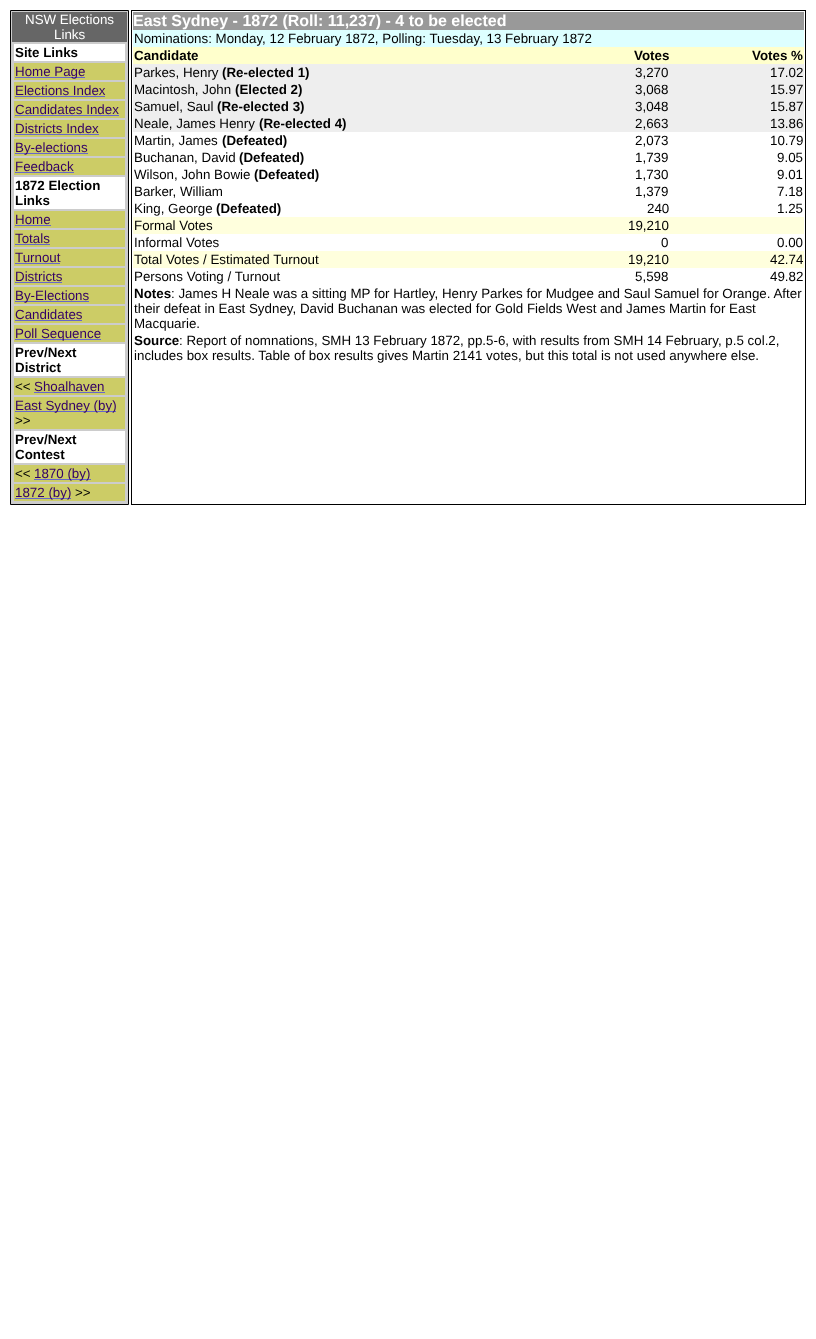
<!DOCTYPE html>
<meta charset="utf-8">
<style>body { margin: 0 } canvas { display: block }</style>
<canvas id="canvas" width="816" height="1339"></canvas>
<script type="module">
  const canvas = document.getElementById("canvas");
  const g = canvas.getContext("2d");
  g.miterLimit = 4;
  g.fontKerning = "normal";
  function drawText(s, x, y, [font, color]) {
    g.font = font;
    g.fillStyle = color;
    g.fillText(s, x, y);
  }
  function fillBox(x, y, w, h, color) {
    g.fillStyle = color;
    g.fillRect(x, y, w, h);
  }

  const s1 = ["13.35px Liberation Sans", "#FFFFFF"];
  const s2 = ["bold 13.35px Liberation Sans", "#000000"];
  const s3 = ["13.35px Liberation Sans", "#330066"];
  const s4 = ["13.35px Liberation Sans", "#000000"];
  const s5 = ["bold 16px Liberation Sans", "#FFFFFF"];

  fillBox(0, 0, 816, 1339, "#FFFFFF");
  g.fillStyle = "#CCCCCC";
  g.beginPath();
  g.rect(10.5, 10.5, 118, 494);
  g.fill();
  g.strokeStyle = "#000000";
  g.stroke();
  fillBox(12, 12, 115, 30, "#666666");
  drawText("NSW Elections", 25, 24, s1);
  drawText("Links", 54, 39, s1);
  fillBox(14, 44, 111, 17, "#FFFFFF");
  drawText("Site Links", 15, 57, s2);
  fillBox(14, 63, 111, 17, "#CCCC66");
  fillBox(15, 77, 70, 1, "#6666CC");
  drawText("Home Page", 15, 76, s3);
  fillBox(14, 82, 111, 17, "#CCCC66");
  drawText("Elections Index", 15, 95, s3);
  fillBox(15, 96, 90, 1, "#6666CC");
  fillBox(14, 101, 111, 17, "#CCCC66");
  drawText("Candidates Index", 15, 114, s3);
  fillBox(15, 115, 104, 1, "#6666CC");
  fillBox(14, 120, 111, 17, "#CCCC66");
  drawText("Districts Index", 15, 133, s3);
  fillBox(15, 134, 84, 1, "#6666CC");
  fillBox(14, 139, 111, 17, "#CCCC66");
  fillBox(15, 153, 73, 1, "#6666CC");
  drawText("By-elections", 15, 152, s3);
  fillBox(14, 158, 111, 17, "#CCCC66");
  drawText("Feedback", 15, 171, s3);
  fillBox(15, 172, 59, 1, "#6666CC");
  fillBox(14, 177, 111, 32, "#FFFFFF");
  drawText("1872 Election", 15, 190, s2);
  drawText("Links", 15, 205, s2);
  fillBox(14, 211, 111, 17, "#CCCC66");
  drawText("Home", 15, 224, s3);
  fillBox(15, 225, 36, 1, "#6666CC");
  fillBox(14, 230, 111, 17, "#CCCC66");
  drawText("Totals", 15, 243, s3);
  fillBox(15, 244, 35, 1, "#6666CC");
  fillBox(14, 249, 111, 17, "#CCCC66");
  drawText("Turnout", 15, 262, s3);
  fillBox(15, 263, 45, 1, "#6666CC");
  fillBox(14, 268, 111, 17, "#CCCC66");
  drawText("Districts", 15, 281, s3);
  fillBox(15, 282, 47, 1, "#6666CC");
  fillBox(14, 287, 111, 17, "#CCCC66");
  fillBox(15, 301, 74, 1, "#6666CC");
  drawText("By-Elections", 15, 300, s3);
  fillBox(14, 306, 111, 17, "#CCCC66");
  drawText("Candidates", 15, 319, s3);
  fillBox(15, 320, 67, 1, "#6666CC");
  fillBox(14, 325, 111, 17, "#CCCC66");
  fillBox(15, 339, 86, 1, "#6666CC");
  drawText("Poll Sequence", 15, 338, s3);
  fillBox(14, 344, 111, 32, "#FFFFFF");
  drawText("Prev/Next", 15, 357, s2);
  drawText("District", 15, 372, s2);
  fillBox(14, 378, 111, 17, "#CCCC66");
  drawText("<<", 15, 391, s4);
  drawText("Shoalhaven", 34, 391, s3);
  fillBox(34, 392, 71, 1, "#6666CC");
  fillBox(14, 397, 111, 32, "#CCCC66");
  fillBox(15, 411, 101, 1, "#6666CC");
  drawText("East Sydney (by)", 15, 410, s3);
  drawText(">>", 15, 425, s4);
  fillBox(14, 431, 111, 32, "#FFFFFF");
  drawText("Prev/Next", 15, 444, s2);
  drawText("Contest", 15, 459, s2);
  fillBox(14, 465, 111, 17, "#CCCC66");
  drawText("<<", 15, 478, s4);
  fillBox(34, 479, 57, 1, "#6666CC");
  drawText("1870 (by)", 34, 478, s3);
  fillBox(14, 484, 111, 17, "#CCCC66");
  fillBox(15, 498, 56, 1, "#6666CC");
  drawText("1872 (by)", 15, 497, s3);
  drawText(">>", 75, 497, s4);
  g.strokeRect(131.5, 10.5, 674, 494);
  fillBox(133, 12, 671, 18, "#999999");
  drawText("East Sydney - 1872 (Roll: 11,237) - 4 to be elected", 133, 26, s5);
  fillBox(133, 30, 671, 17, "#DDFFFF");
  drawText("Nominations: Monday, 12 February 1872, Polling: Tuesday, 13 February 1872", 134, 43, s4);
  fillBox(133, 47, 671, 17, "#FFFFCC");
  drawText("Candidate", 134, 60, s2);
  drawText("Votes", 634, 60, s2);
  drawText("Votes %", 752, 60, s2);
  fillBox(133, 64, 671, 68, "#EEEEEE");
  drawText("Parkes, Henry", 134, 77, s4);
  drawText("(Re-elected 1)", 222, 77, s2);
  drawText("3,270", 635, 77, s4);
  drawText("17.02", 770, 77, s4);
  drawText("Macintosh, John", 134, 94, s4);
  drawText("(Elected 2)", 235, 94, s2);
  drawText("3,068", 635, 94, s4);
  drawText("15.97", 770, 94, s4);
  drawText("Samuel, Saul", 134, 111, s4);
  drawText("(Re-elected 3)", 217, 111, s2);
  drawText("3,048", 635, 111, s4);
  drawText("15.87", 770, 111, s4);
  drawText("Neale, James Henry", 134, 128, s4);
  drawText("(Re-elected 4)", 259, 128, s2);
  drawText("2,663", 635, 128, s4);
  drawText("13.86", 770, 128, s4);
  drawText("Martin, James", 134, 145, s4);
  drawText("(Defeated)", 222, 145, s2);
  drawText("2,073", 635, 145, s4);
  drawText("10.79", 770, 145, s4);
  drawText("Buchanan, David", 134, 162, s4);
  drawText("(Defeated)", 239, 162, s2);
  drawText("1,739", 635, 162, s4);
  drawText("9.05", 777, 162, s4);
  drawText("Wilson, John Bowie", 134, 179, s4);
  drawText("(Defeated)", 254, 179, s2);
  drawText("1,730", 635, 179, s4);
  drawText("9.01", 777, 179, s4);
  drawText("Barker, William", 134, 196, s4);
  drawText("1,379", 635, 196, s4);
  drawText("7.18", 777, 196, s4);
  drawText("King, George", 134, 213, s4);
  drawText("(Defeated)", 216, 213, s2);
  drawText("240", 647, 213, s4);
  drawText("1.25", 777, 213, s4);
  fillBox(133, 217, 671, 17, "#FFFFDD");
  drawText("Formal Votes", 134, 230, s4);
  drawText("19,210", 628, 230, s4);
  drawText("Informal Votes", 134, 247, s4);
  drawText("0", 661, 247, s4);
  drawText("0.00", 777, 247, s4);
  fillBox(133, 251, 671, 17, "#FFFFDD");
  drawText("Total Votes / Estimated Turnout", 134, 264, s4);
  drawText("19,210", 628, 264, s4);
  drawText("42.74", 770, 264, s4);
  drawText("Persons Voting / Turnout", 134, 281, s4);
  drawText("5,598", 635, 281, s4);
  drawText("49.82", 770, 281, s4);
  drawText("Notes", 134, 298, s2);
  drawText(": James H Neale was a sitting MP for Hartley, Henry Parkes for Mudgee and Saul Samuel for Orange. After", 171, 298, s4);
  drawText("their defeat in East Sydney, David Buchanan was elected for Gold Fields West and James Martin for East", 134, 313, s4);
  drawText("Macquarie.", 134, 328, s4);
  drawText("Source", 134, 345, s2);
  drawText(": Report of nomnations, SMH 13 February 1872, pp.5-6, with results from SMH 14 February, p.5 col.2,", 179, 345, s4);
  drawText("includes box results. Table of box results gives Martin 2141 votes, but this total is not used anywhere else.", 134, 360, s4);
</script>
